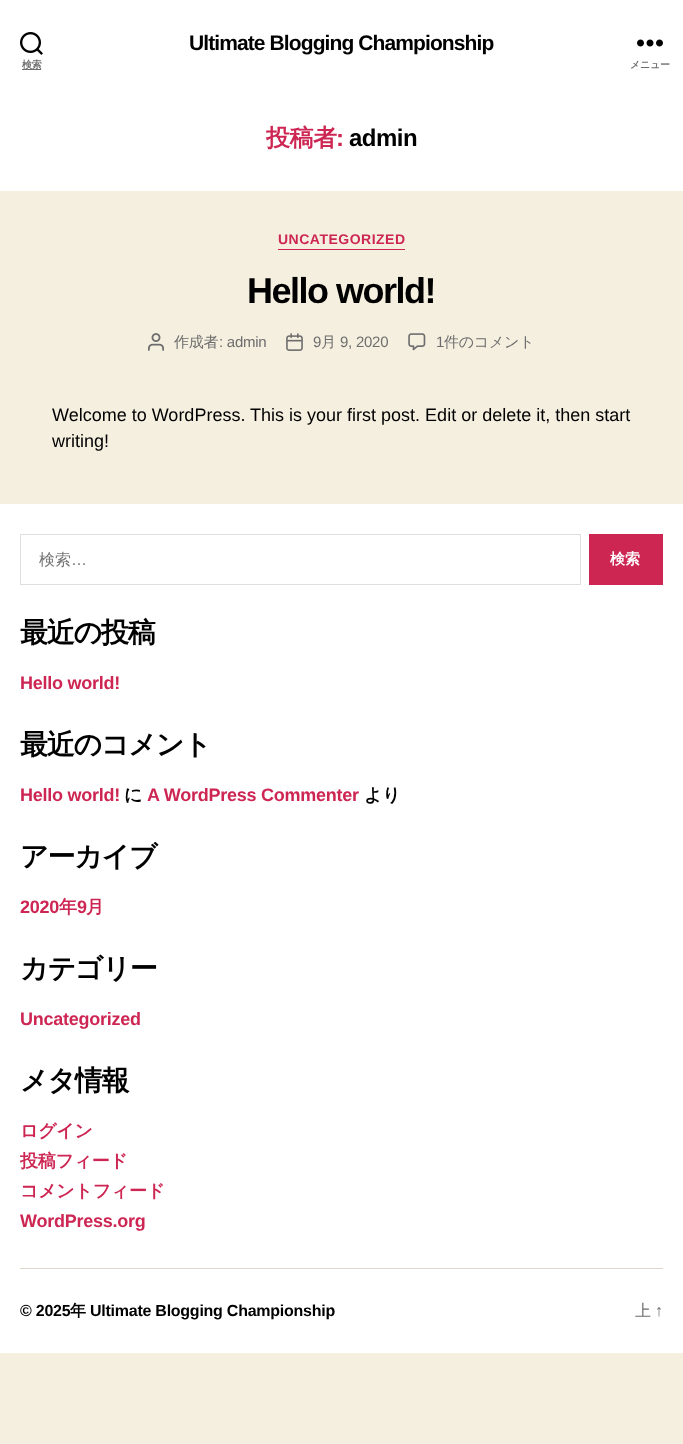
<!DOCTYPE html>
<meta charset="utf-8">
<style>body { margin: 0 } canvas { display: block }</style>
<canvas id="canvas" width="683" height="1444"></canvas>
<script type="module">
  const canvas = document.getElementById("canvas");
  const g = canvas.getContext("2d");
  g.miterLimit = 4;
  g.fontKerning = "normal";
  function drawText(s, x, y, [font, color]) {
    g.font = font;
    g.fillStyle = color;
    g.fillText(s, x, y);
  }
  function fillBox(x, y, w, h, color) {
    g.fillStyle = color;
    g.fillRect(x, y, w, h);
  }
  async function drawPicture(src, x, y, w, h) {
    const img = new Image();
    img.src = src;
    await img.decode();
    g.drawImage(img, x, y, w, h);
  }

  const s1 = ["bold 21px Liberation Sans", "#000000"];
  const s2 = ["bold 10px WenQuanYi Zen Hei", "#6D6D6D"];
  const s3 = ["bold 24px WenQuanYi Zen Hei", "#CD2653"];
  const s4 = ["bold 24px Liberation Sans", "#CD2653"];
  const s5 = ["bold 24px Liberation Sans", "#000000"];
  const s6 = ["bold 14px Liberation Sans", "#CD2653"];
  const s7 = ["bold 36px Liberation Sans", "#000000"];
  const s8 = ["500 15px WenQuanYi Zen Hei", "#6D6D6D"];
  const s9 = ["15px Liberation Sans", "#6D6D6D"];
  const s10 = ["18px Liberation Sans", "#000000"];
  const s11 = ["500 16px WenQuanYi Zen Hei", "#757575"];
  const s12 = ["16px Liberation Sans", "#757575"];
  const s13 = ["bold 15px WenQuanYi Zen Hei", "#FFFFFF"];
  const s14 = ["bold 28px WenQuanYi Zen Hei", "#000000"];
  const s15 = ["bold 18px Liberation Sans", "#CD2653"];
  const s16 = ["bold 18px WenQuanYi Zen Hei", "#000000"];
  const s17 = ["bold 18px WenQuanYi Zen Hei", "#CD2653"];
  const s18 = ["bold 16px Liberation Sans", "#000000"];
  const s19 = ["bold 16px WenQuanYi Zen Hei", "#000000"];
  const s20 = ["500 16px WenQuanYi Zen Hei", "#6D6D6D"];
  const s21 = ["16px Liberation Sans", "#6D6D6D"];

  fillBox(0, 0, 683, 1444, "#F5EFE0");
  fillBox(0, 0, 683, 191, "#FFFFFF");
  g.letterSpacing = "-0.9px";
  drawText("Ultimate Blogging Championship", 189, 50, s1);
  await drawPicture("pic1.png", 20, 32, 23, 23);
  fillBox(22, 69, 19, 1, "#6D6D6D");
  g.letterSpacing = "-0.25px";
  drawText("検索", 22, 68, s2);
  await drawPicture("pic2.png", 637, 39, 26, 8);
  drawText("メニュー", 630, 68, s2);
  g.letterSpacing = "-0.5px";
  drawText("投稿者", 266, 146, s3);
  drawText(":", 336, 146, s4);
  drawText("admin", 349, 146, s5);
  fillBox(278, 249, 127, 1, "#CD2653");
  g.letterSpacing = "0.5px";
  drawText("UNCATEGORIZED", 278, 244, s6);
  g.letterSpacing = "-1.5px";
  drawText("Hello world!", 247, 303, s7);
  await drawPicture("pic3.png", 148, 333, 16, 18);
  g.letterSpacing = "-0.25px";
  drawText("作成者", 174, 347, s8);
  drawText(": admin", 219, 347, s9);
  await drawPicture("pic4.png", 286, 333, 17, 18);
  drawText("9", 313, 347, s9);
  drawText("月", 321, 347, s8);
  drawText("9, 2020", 340, 347, s9);
  await drawPicture("pic5.png", 408, 333, 18, 18);
  drawText("1", 436, 347, s9);
  drawText("件のコメント", 444, 347, s8);
  g.letterSpacing = "0px";
  drawText("Welcome to WordPress. This is your first post. Edit or delete it, then start", 52, 421, s10);
  drawText("writing!", 52, 447, s10);
  fillBox(0, 504, 683, 849, "#FFFFFF");
  fillBox(20, 1268, 643, 1, "#DCD7CA");
  g.strokeStyle = "#DEDFDF";
  g.strokeRect(20.5, 534.5, 560, 50);
  drawText("検索", 39, 565, s11);
  drawText("…", 71, 565, s12);
  fillBox(589, 534, 74, 51, "#CD2653");
  drawText("検索", 610, 564, s13);
  g.letterSpacing = "-1.25px";
  drawText("最近の投稿", 20, 642, s14);
  g.letterSpacing = "-0.25px";
  drawText("Hello world!", 20, 689, s15);
  g.letterSpacing = "-1.25px";
  drawText("最近のコメント", 20, 754, s14);
  g.letterSpacing = "-0.25px";
  drawText("Hello world!", 20, 801, s15);
  drawText("に", 124, 801, s16);
  drawText("A WordPress Commenter", 147, 801, s15);
  drawText("より", 364, 801, s16);
  g.letterSpacing = "-1.25px";
  drawText("アーカイブ", 20, 866, s14);
  g.letterSpacing = "-0.25px";
  drawText("2020", 20, 913, s15);
  drawText("年", 59, 913, s17);
  drawText("9", 77, 913, s15);
  drawText("月", 86, 913, s17);
  g.letterSpacing = "-1.25px";
  drawText("カテゴリー", 20, 978, s14);
  g.letterSpacing = "-0.25px";
  drawText("Uncategorized", 20, 1025, s15);
  g.letterSpacing = "-1.25px";
  drawText("メタ情報", 20, 1090, s14);
  g.letterSpacing = "-0.25px";
  drawText("ログイン", 20, 1137, s17);
  drawText("投稿フィード", 20, 1167, s17);
  drawText("コメントフィード", 20, 1197, s17);
  drawText("WordPress.org", 20, 1227, s15);
  drawText("© 2025", 20, 1316, s18);
  drawText("年", 70, 1316, s19);
  drawText("Ultimate Blogging Championship", 90, 1316, s18);
  drawText("上", 635, 1316, s20);
  drawText("↑", 655, 1316, s21);
</script>
